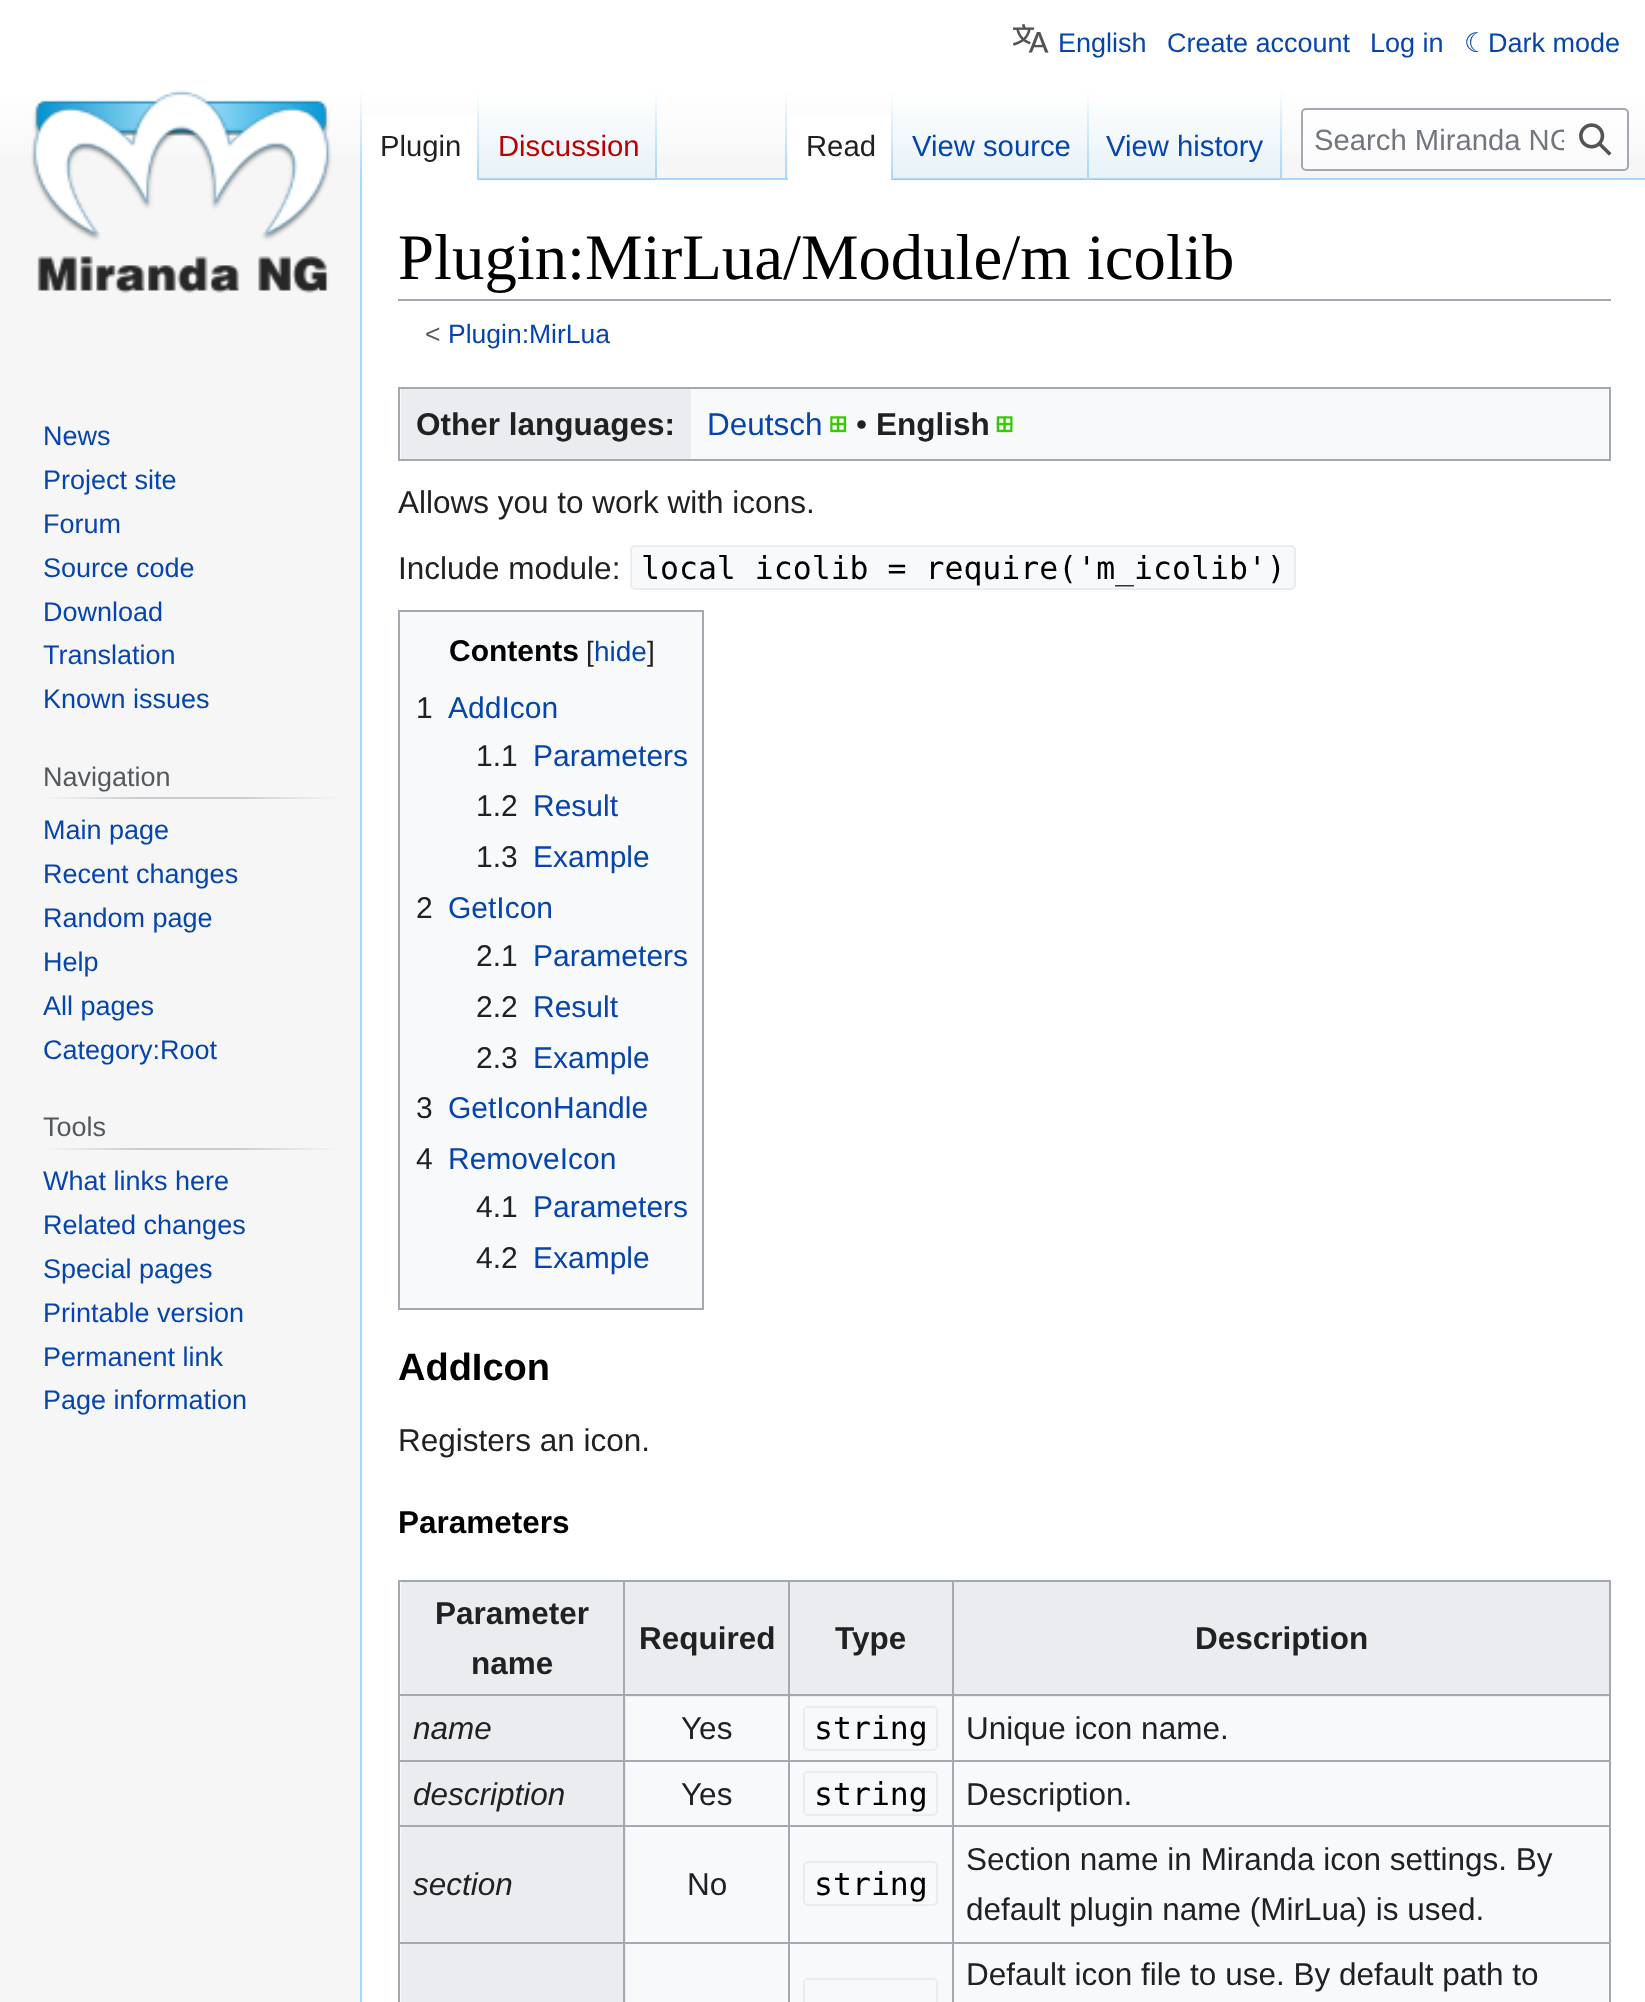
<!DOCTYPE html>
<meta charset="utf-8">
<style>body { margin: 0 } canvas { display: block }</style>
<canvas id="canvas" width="1645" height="2002"></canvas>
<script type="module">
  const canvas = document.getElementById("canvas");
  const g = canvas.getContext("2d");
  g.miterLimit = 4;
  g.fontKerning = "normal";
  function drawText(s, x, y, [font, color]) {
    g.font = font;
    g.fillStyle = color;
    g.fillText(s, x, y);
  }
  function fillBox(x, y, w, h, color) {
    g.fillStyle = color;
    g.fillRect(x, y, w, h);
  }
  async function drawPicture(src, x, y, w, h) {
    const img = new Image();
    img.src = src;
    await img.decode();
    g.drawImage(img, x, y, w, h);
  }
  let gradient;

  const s1 = ["27px Liberation Sans", "#0645AD"];
  const s2 = ["27px DejaVu Sans", "#0645AD"];
  const s3 = ["29.25px Liberation Sans", "#202122"];
  const s4 = ["29.25px Liberation Sans", "#BA0000"];
  const s5 = ["29.25px Liberation Sans", "#0645AD"];
  const s6 = ["29.25px Liberation Sans", "#72777D"];
  const s7 = ["27px Liberation Sans", "#54595D"];
  const s8 = ["64.75px Liberation Serif", "#000000"];
  const s9 = ["26.5px Liberation Sans", "#54595D"];
  const s10 = ["26.5px Liberation Sans", "#0645AD"];
  const s11 = ["bold 31.5px Liberation Sans", "#202122"];
  const s12 = ["31.5px Liberation Sans", "#0645AD"];
  const s13 = ["31.5px Liberation Sans", "#202122"];
  const s14 = ["31.5px DejaVu Sans Mono", "#000000"];
  const s15 = ["bold 30px Liberation Sans", "#000000"];
  const s16 = ["28px Liberation Sans", "#202122"];
  const s17 = ["28px Liberation Sans", "#0645AD"];
  const s18 = ["30px Liberation Sans", "#202122"];
  const s19 = ["30px Liberation Sans", "#0645AD"];
  const s20 = ["bold 38px Liberation Sans", "#000000"];
  const s21 = ["bold 31.5px Liberation Sans", "#000000"];
  const s22 = ["italic 31.5px Liberation Sans", "#202122"];

  fillBox(0, 0, 1645, 2002, "#F6F6F6");
  gradient = g.createLinearGradient(824, 0, 824, 180);
  gradient.addColorStop(0.5, "#FFFFFF");
  gradient.addColorStop(1, "#F6F6F6");
  g.fillStyle = gradient;
  g.fillRect(0, 0, 1645, 155);
  await drawPicture("pic1.png", 1013, 23, 36, 30);
  drawText("English", 1058, 52, s1);
  drawText("Create account", 1167, 52, s1);
  drawText("Log in", 1370, 52, s1);
  drawText("☾", 1464, 52, s2);
  drawText("Dark mode", 1488, 52, s1);
  fillBox(360, 178, 2, 1824, "#A7D7F9");
  gradient = g.createLinearGradient(361, 90, 361, 180);
  gradient.addColorStop(0, "rgba(167, 215, 249, 0)");
  gradient.addColorStop(1, "#A7D7F9");
  g.fillStyle = gradient;
  g.fillRect(360, 90, 2, 90);
  fillBox(362, 115, 115, 65, "#FFFFFF");
  gradient = g.createLinearGradient(478, 90, 478, 180);
  gradient.addColorStop(0, "#FFFFFF");
  gradient.addColorStop(1, "#A7D7F9");
  g.fillStyle = gradient;
  g.fillRect(477, 90, 2, 90);
  drawText("Plugin", 380, 156, s3);
  gradient = g.createLinearGradient(568, 180, 568, 90);
  gradient.addColorStop(0, "#77C1F6");
  gradient.addColorStop(0.03, "#E8F2F8");
  gradient.addColorStop(1, "#FFFFFF");
  g.fillStyle = gradient;
  g.fillRect(479, 103, 178, 77);
  gradient = g.createLinearGradient(656, 90, 656, 180);
  gradient.addColorStop(0, "rgba(167, 215, 249, 0)");
  gradient.addColorStop(1, "#A7D7F9");
  g.fillStyle = gradient;
  g.fillRect(655, 90, 2, 90);
  drawText("Discussion", 498, 156, s4);
  fillBox(657, 178, 988, 2, "#A7D7F9");
  gradient = g.createLinearGradient(786, 90, 786, 180);
  gradient.addColorStop(0, "rgba(167, 215, 249, 0)");
  gradient.addColorStop(1, "#A7D7F9");
  g.fillStyle = gradient;
  g.fillRect(785, 90, 2, 90);
  fillBox(788, 115, 103, 65, "#FFFFFF");
  gradient = g.createLinearGradient(892, 90, 892, 180);
  gradient.addColorStop(0, "#FFFFFF");
  gradient.addColorStop(1, "#A7D7F9");
  g.fillStyle = gradient;
  g.fillRect(891, 90, 2, 90);
  drawText("Read", 806, 156, s3);
  gradient = g.createLinearGradient(991, 180, 991, 90);
  gradient.addColorStop(0, "#77C1F6");
  gradient.addColorStop(0.03, "#E8F2F8");
  gradient.addColorStop(1, "#FFFFFF");
  g.fillStyle = gradient;
  g.fillRect(893, 103, 196, 77);
  gradient = g.createLinearGradient(1088, 90, 1088, 180);
  gradient.addColorStop(0, "rgba(167, 215, 249, 0)");
  gradient.addColorStop(1, "#A7D7F9");
  g.fillStyle = gradient;
  g.fillRect(1087, 90, 2, 90);
  drawText("View source", 912, 156, s5);
  gradient = g.createLinearGradient(1186, 180, 1186, 90);
  gradient.addColorStop(0, "#77C1F6");
  gradient.addColorStop(0.03, "#E8F2F8");
  gradient.addColorStop(1, "#FFFFFF");
  g.fillStyle = gradient;
  g.fillRect(1089, 103, 194, 77);
  gradient = g.createLinearGradient(1281, 90, 1281, 180);
  gradient.addColorStop(0, "rgba(167, 215, 249, 0)");
  gradient.addColorStop(1, "#A7D7F9");
  g.fillStyle = gradient;
  g.fillRect(1280, 90, 2, 90);
  drawText("View history", 1106, 156, s5);
  g.fillStyle = "rgba(255, 255, 255, 0.5)";
  g.beginPath();
  g.roundRect(1302, 109, 326, 61, 4);
  g.fill();
  g.strokeStyle = "#A2A9B1";
  g.lineWidth = 2;
  g.stroke();
  g.save();
  g.beginPath();
  g.rect(1314, 124, 250, 34);
  g.clip();
  drawText("Search Miranda NG", 1314, 150, s6);
  g.restore();
  await drawPicture("pic2.png", 1579, 123, 33, 33);
  await drawPicture("pic3.png", 31, 90, 301, 204);
  drawText("News", 43, 445, s1);
  drawText("Project site", 43, 489, s1);
  drawText("Forum", 43, 533, s1);
  drawText("Source code", 43, 577, s1);
  drawText("Download", 43, 621, s1);
  drawText("Translation", 43, 664, s1);
  drawText("Known issues", 43, 708, s1);
  gradient = g.createLinearGradient(43, 798, 338, 798);
  gradient.addColorStop(0, "#F6F6F6");
  gradient.addColorStop(0.33, "#C8CCD1");
  gradient.addColorStop(0.66, "#C8CCD1");
  gradient.addColorStop(1, "#F6F6F6");
  g.fillStyle = gradient;
  g.fillRect(43, 797, 295, 2);
  drawText("Navigation", 43, 786, s7);
  drawText("Main page", 43, 839, s1);
  drawText("Recent changes", 43, 883, s1);
  drawText("Random page", 43, 927, s1);
  drawText("Help", 43, 971, s1);
  drawText("All pages", 43, 1015, s1);
  drawText("Category:Root", 43, 1059, s1);
  gradient = g.createLinearGradient(43, 1149, 338, 1149);
  gradient.addColorStop(0, "#F6F6F6");
  gradient.addColorStop(0.33, "#C8CCD1");
  gradient.addColorStop(0.66, "#C8CCD1");
  gradient.addColorStop(1, "#F6F6F6");
  g.fillStyle = gradient;
  g.fillRect(43, 1148, 295, 2);
  drawText("Tools", 43, 1136, s7);
  drawText("What links here", 43, 1190, s1);
  drawText("Related changes", 43, 1234, s1);
  drawText("Special pages", 43, 1278, s1);
  drawText("Printable version", 43, 1322, s1);
  drawText("Permanent link", 43, 1366, s1);
  drawText("Page information", 43, 1409, s1);
  fillBox(362, 180, 1283, 1822, "#FFFFFF");
  fillBox(398, 299, 1213, 2, "#A2A9B1");
  drawText("Plugin:MirLua/Module/m icolib", 398, 279, s8);
  drawText("<", 425, 343, s9);
  drawText("Plugin:MirLua", 448, 343, s10);
  g.fillStyle = "#F8F9FA";
  g.beginPath();
  g.rect(399, 388, 1211, 72);
  g.fill();
  g.stroke();
  fillBox(401, 389, 290, 70, "#EAECF0");
  drawText("Other languages:", 416, 435, s11);
  drawText("Deutsch", 707, 435, s12);
  await drawPicture("pic4.png", 830, 416, 17, 17);
  drawText("•", 856, 435, s13);
  drawText("English", 876, 435, s11);
  await drawPicture("pic5.png", 996, 416, 17, 17);
  drawText("Allows you to work with icons.", 398, 513, s13);
  drawText("Include module:", 398, 579, s13);
  g.fillStyle = "#F8F9FA";
  g.beginPath();
  g.roundRect(631, 546, 664, 43, 4);
  g.fill();
  g.strokeStyle = "#EAECF0";
  g.stroke();
  drawText("local icolib = require('m_icolib')", 641, 579, s14);
  g.fillStyle = "#F8F9FA";
  g.beginPath();
  g.rect(399, 611, 304, 698);
  g.fill();
  g.strokeStyle = "#A2A9B1";
  g.stroke();
  drawText("Contents", 449, 661, s15);
  drawText("[", 586, 661, s16);
  drawText("hide", 594, 661, s17);
  drawText("]", 647, 661, s16);
  drawText("1", 416, 718, s18);
  drawText("AddIcon", 448, 718, s19);
  drawText("1.1", 476, 766, s18);
  drawText("Parameters", 533, 766, s19);
  drawText("1.2", 476, 816, s18);
  drawText("Result", 533, 816, s19);
  drawText("1.3", 476, 867, s18);
  drawText("Example", 533, 867, s19);
  drawText("2", 416, 918, s18);
  drawText("GetIcon", 448, 918, s19);
  drawText("2.1", 476, 966, s18);
  drawText("Parameters", 533, 966, s19);
  drawText("2.2", 476, 1017, s18);
  drawText("Result", 533, 1017, s19);
  drawText("2.3", 476, 1068, s18);
  drawText("Example", 533, 1068, s19);
  drawText("3", 416, 1118, s18);
  drawText("GetIconHandle", 448, 1118, s19);
  drawText("4", 416, 1169, s18);
  drawText("RemoveIcon", 448, 1169, s19);
  drawText("4.1", 476, 1217, s18);
  drawText("Parameters", 533, 1217, s19);
  drawText("4.2", 476, 1268, s18);
  drawText("Example", 533, 1268, s19);
  drawText("AddIcon", 398, 1380, s20);
  drawText("Registers an icon.", 398, 1451, s13);
  drawText("Parameters", 398, 1533, s21);
  fillBox(400, 1582, 1209, 420, "#F8F9FA");
  fillBox(398, 1580, 1213, 2, "#A2A9B1");
  fillBox(1609, 1580, 2, 422, "#A2A9B1");
  fillBox(398, 1580, 2, 422, "#A2A9B1");
  fillBox(401, 1582, 387, 115, "#EAECF0");
  drawText("Parameter", 435, 1624, s11);
  drawText("name", 471, 1674, s11);
  fillBox(790, 1582, 162, 115, "#EAECF0");
  fillBox(954, 1582, 655, 115, "#EAECF0");
  fillBox(952, 1694, 659, 2, "#A2A9B1");
  fillBox(952, 1760, 659, 2, "#A2A9B1");
  fillBox(952, 1825, 659, 2, "#A2A9B1");
  fillBox(952, 1942, 659, 2, "#A2A9B1");
  fillBox(952, 1942, 2, 60, "#A2A9B1");
  fillBox(788, 1942, 166, 2, "#A2A9B1");
  fillBox(952, 1825, 2, 119, "#A2A9B1");
  fillBox(788, 1825, 166, 2, "#A2A9B1");
  fillBox(952, 1760, 2, 67, "#A2A9B1");
  fillBox(788, 1760, 166, 2, "#A2A9B1");
  fillBox(952, 1694, 2, 68, "#A2A9B1");
  fillBox(788, 1694, 166, 2, "#A2A9B1");
  fillBox(788, 1942, 2, 60, "#A2A9B1");
  fillBox(623, 1942, 167, 2, "#A2A9B1");
  fillBox(788, 1825, 2, 119, "#A2A9B1");
  fillBox(623, 1825, 167, 2, "#A2A9B1");
  fillBox(788, 1760, 2, 67, "#A2A9B1");
  fillBox(623, 1760, 167, 2, "#A2A9B1");
  fillBox(788, 1694, 2, 68, "#A2A9B1");
  fillBox(623, 1694, 167, 2, "#A2A9B1");
  fillBox(401, 1697, 225, 63, "#EAECF0");
  fillBox(401, 1762, 225, 63, "#EAECF0");
  fillBox(401, 1827, 225, 115, "#EAECF0");
  fillBox(401, 1944, 225, 58, "#EAECF0");
  fillBox(623, 1942, 2, 60, "#A2A9B1");
  fillBox(398, 1942, 228, 2, "#A2A9B1");
  fillBox(623, 1825, 2, 119, "#A2A9B1");
  fillBox(398, 1825, 228, 2, "#A2A9B1");
  fillBox(623, 1760, 2, 67, "#A2A9B1");
  fillBox(398, 1760, 228, 2, "#A2A9B1");
  fillBox(623, 1694, 2, 68, "#A2A9B1");
  fillBox(398, 1694, 228, 2, "#A2A9B1");
  fillBox(623, 1580, 2, 117, "#A2A9B1");
  drawText("Required", 639, 1649, s11);
  fillBox(788, 1580, 2, 117, "#A2A9B1");
  drawText("Type", 835, 1649, s11);
  fillBox(952, 1580, 2, 117, "#A2A9B1");
  drawText("Description", 1195, 1649, s11);
  drawText("name", 413, 1739, s22);
  drawText("Yes", 681, 1739, s13);
  g.beginPath();
  g.roundRect(804, 1707, 133, 43, 4);
  g.strokeStyle = "#EAECF0";
  g.stroke();
  drawText("string", 814, 1739, s14);
  drawText("Unique icon name.", 966, 1739, s13);
  drawText("description", 413, 1805, s22);
  drawText("Yes", 681, 1805, s13);
  g.beginPath();
  g.roundRect(804, 1772, 133, 43, 4);
  g.stroke();
  drawText("string", 814, 1805, s14);
  drawText("Description.", 966, 1805, s13);
  drawText("section", 413, 1895, s22);
  drawText("No", 687, 1895, s13);
  g.beginPath();
  g.roundRect(804, 1862, 133, 43, 4);
  g.stroke();
  drawText("string", 814, 1895, s14);
  drawText("Section name in Miranda icon settings. By", 966, 1870, s13);
  drawText("default plugin name (MirLua) is used.", 966, 1920, s13);
  g.beginPath();
  g.roundRect(804, 1979, 133, 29, 4);
  g.stroke();
  drawText("Default icon file to use. By default path to", 966, 1985, s13);
</script>
